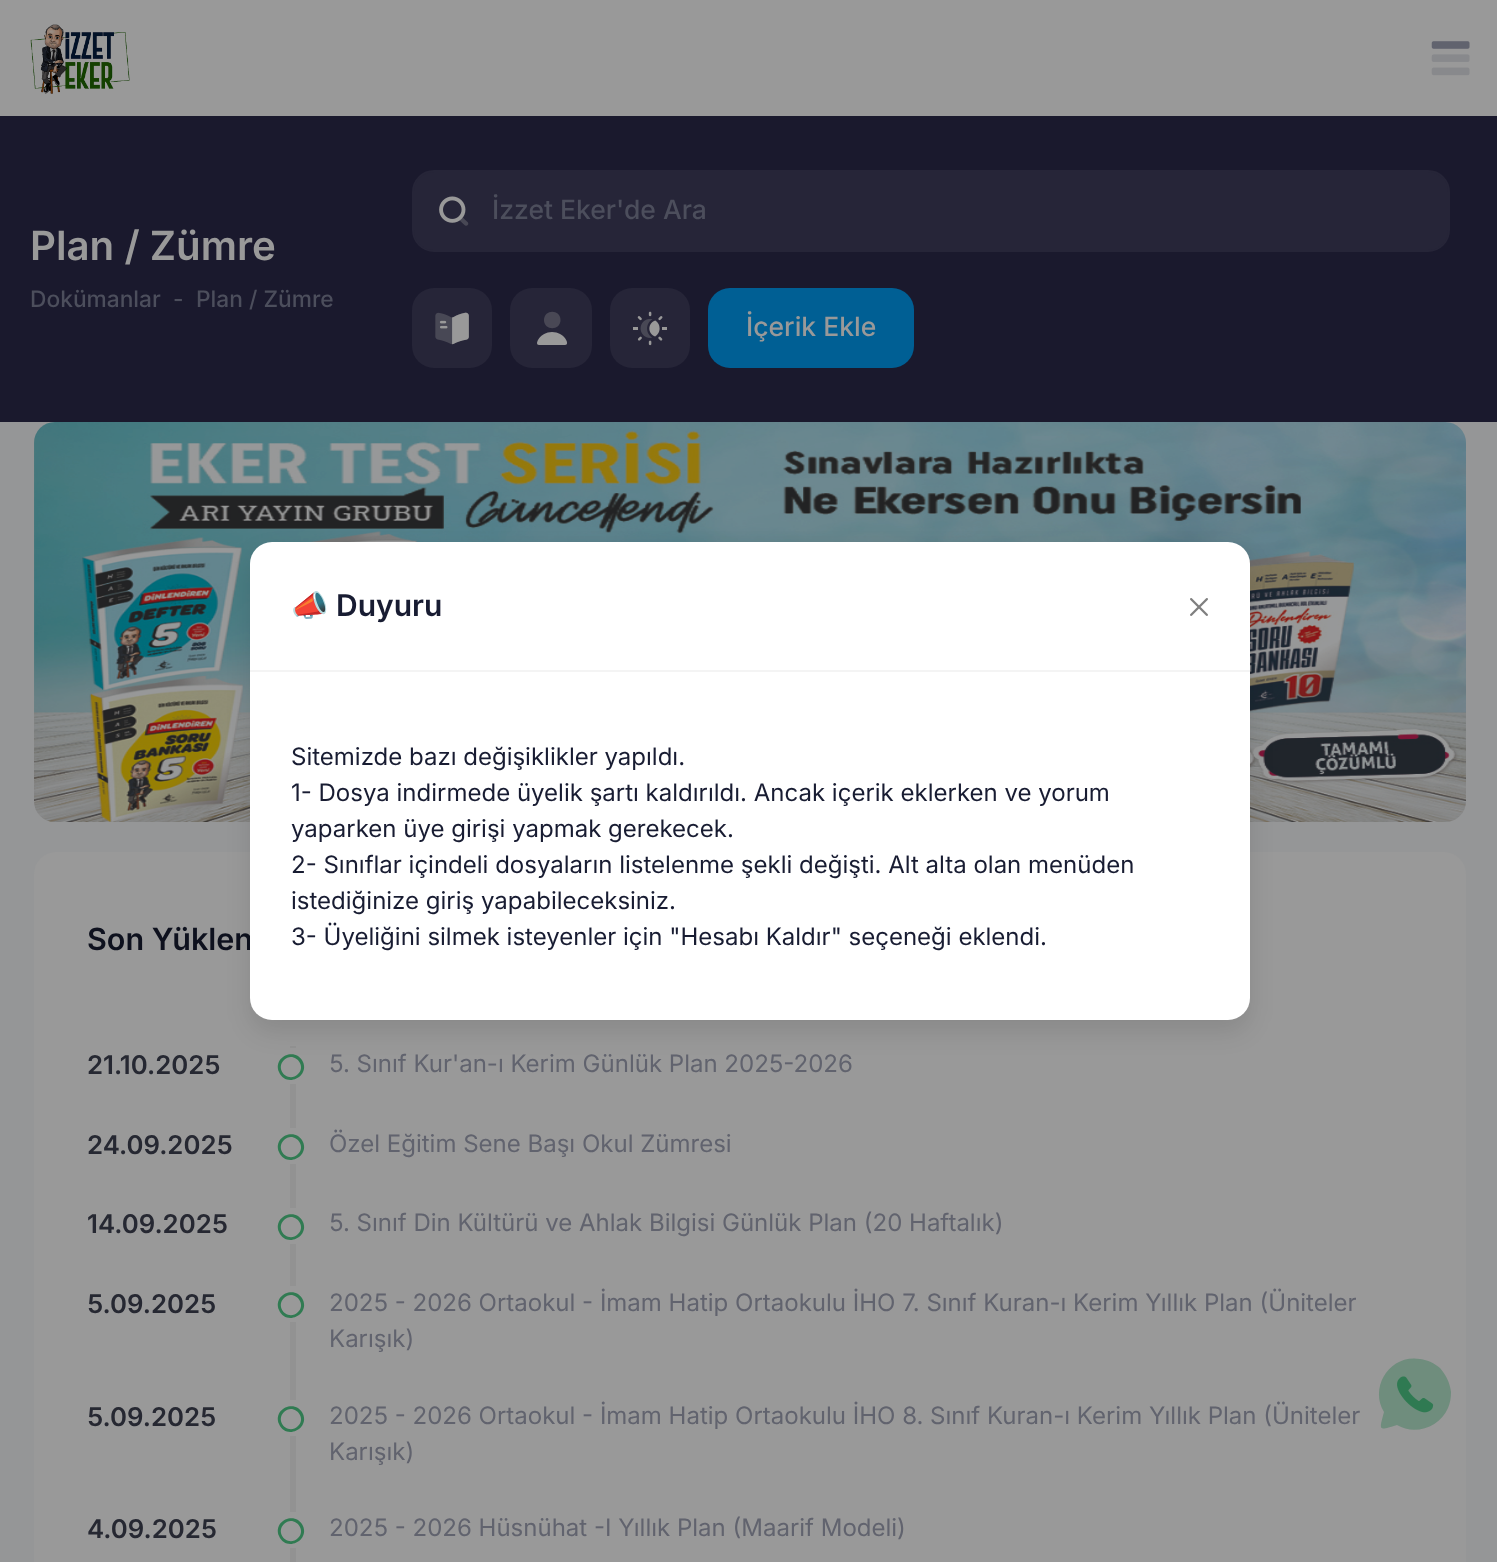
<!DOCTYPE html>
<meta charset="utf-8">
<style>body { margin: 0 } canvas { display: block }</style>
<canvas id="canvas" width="1497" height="1562"></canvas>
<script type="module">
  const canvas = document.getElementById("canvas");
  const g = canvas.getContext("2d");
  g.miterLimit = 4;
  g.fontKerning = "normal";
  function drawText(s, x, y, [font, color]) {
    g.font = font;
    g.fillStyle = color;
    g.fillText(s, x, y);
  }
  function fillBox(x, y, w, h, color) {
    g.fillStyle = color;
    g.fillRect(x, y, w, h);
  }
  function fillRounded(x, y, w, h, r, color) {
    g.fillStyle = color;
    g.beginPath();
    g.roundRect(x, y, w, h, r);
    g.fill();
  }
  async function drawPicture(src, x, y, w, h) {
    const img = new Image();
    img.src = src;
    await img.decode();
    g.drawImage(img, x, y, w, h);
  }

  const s1 = ["600 40.25px Inter", "#999999"];
  const s2 = ["500 22.75px Inter", "#4C4E5C"];
  const s3 = ["500 26.5px Inter", "#4C4E5C"];
  const s4 = ["500 26.5px Inter", "#999999"];
  const s5 = ["600 30.5px Inter", "#0E111E"];
  const s6 = ["600 25.75px Inter", "#262832"];
  const s7 = ["24px Inter", "#61636E"];
  const s8 = ["bold 30px Noto Color Emoji", "#181C32"];
  const s9 = ["600 30px Inter", "#181C32"];
  const s10 = ["24px Inter", "#181C32"];

  fillBox(0, 0, 1497, 1562, "#959697");
  fillBox(0, 0, 1497, 116, "#999999");
  await drawPicture("pic1.png", 30, 24, 100, 70);
  await drawPicture("pic2.png", 1431, 41, 39, 8);
  await drawPicture("pic3.png", 1431, 54, 39, 22);
  fillBox(0, 116, 1497, 306, "#1A192D");
  drawText("Plan / Zümre", 30, 260, s1);
  drawText("Dokümanlar", 30, 307, s2);
  drawText("-", 173, 307, s2);
  drawText("Plan / Zümre", 196, 307, s2);
  g.fillStyle = "#262538";
  g.beginPath();
  g.roundRect(413, 171, 1036, 80, 21);
  g.fill();
  g.strokeStyle = "#262538";
  g.lineWidth = 2;
  g.stroke();
  await drawPicture("pic4.png", 439, 196, 27, 27);
  await drawPicture("pic5.png", 460, 218, 9, 8);
  drawText("İzzet Eker'de Ara", 492, 219, s3);
  fillRounded(412, 288, 80, 80, 22, "#262538");
  await drawPicture("pic7.png", 439, 320, 8, 4);
  await drawPicture("pic8.png", 452, 312, 17, 33);
  await drawPicture("pic9.png", 440, 325, 8, 4);
  await drawPicture("pic6.png", 435, 312, 34, 33);
  fillRounded(510, 288, 82, 80, 22, "#262538");
  g.fillStyle = "#494855";
  g.beginPath();
  g.moveTo(560.5, 320);
  g.bezierCurveTo(560.5, 331, 544, 331, 544, 320);
  g.bezierCurveTo(544, 309, 560.5, 309, 560.5, 320);
  g.closePath();
  g.fill();
  g.fillStyle = "#999999";
  g.beginPath();
  g.moveTo(565, 345);
  g.bezierCurveTo(570.5, 345, 564.5, 332, 552, 332);
  g.bezierCurveTo(540, 332, 533.5, 345, 539, 345);
  g.closePath();
  g.fill();
  fillRounded(610, 288, 80, 80, 22, "#262538");
  await drawPicture("pic10.png", 648, 311, 4, 6);
  fillBox(633, 327, 5, 3, "#999999");
  await drawPicture("pic11.png", 637, 316, 5, 5);
  await drawPicture("pic13.png", 649, 320, 11, 17);
  await drawPicture("pic15.png", 637, 336, 5, 5);
  await drawPicture("pic12.png", 640, 318, 13, 20);
  await drawPicture("pic14.png", 658, 316, 5, 5);
  fillBox(662, 327, 5, 3, "#999999");
  await drawPicture("pic16.png", 658, 336, 5, 5);
  await drawPicture("pic17.png", 648, 340, 4, 6);
  fillRounded(708, 288, 206, 80, 22, "#005F94");
  drawText("İçerik Ekle", 746, 336, s4);
  await drawPicture("pic18.png", 34, 422, 1432, 400);
  fillRounded(34, 852, 1432, 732, 22, "#999999");
  drawText("Son Yüklen", 87, 950, s5);
  fillBox(290, 1046, 6, 516, "#929292");
  drawText("21.10.2025", 87, 1074, s6);
  fillBox(290, 1048, 6, 36, "#999999");
  g.fillStyle = "#307B52";
  g.beginPath();
  g.moveTo(298, 1074);
  g.bezierCurveTo(307.5, 1065, 293, 1050.5, 284, 1060);
  g.bezierCurveTo(274.5, 1069.5, 288.5, 1083.5, 298, 1074);
  g.closePath();
  g.moveTo(303, 1062);
  g.bezierCurveTo(309.5, 1077.5, 285.5, 1088, 279, 1072);
  g.bezierCurveTo(272.5, 1056.5, 296, 1046.5, 303, 1062);
  g.closePath();
  g.fill();
  drawText("5. Sınıf Kur'an-ı Kerim Günlük Plan 2025-2026", 329, 1072, s7);
  drawText("24.09.2025", 87, 1154, s6);
  fillBox(290, 1128, 6, 36, "#999999");
  g.fillStyle = "#307B52";
  g.beginPath();
  g.moveTo(298, 1154);
  g.bezierCurveTo(307.5, 1145, 293, 1130.5, 284, 1140);
  g.bezierCurveTo(274.5, 1149.5, 288.5, 1163.5, 298, 1154);
  g.closePath();
  g.moveTo(303, 1142);
  g.bezierCurveTo(309.5, 1157.5, 285.5, 1168, 279, 1152);
  g.bezierCurveTo(272.5, 1136.5, 296, 1126.5, 303, 1142);
  g.closePath();
  g.fill();
  drawText("Özel Eğitim Sene Başı Okul Zümresi", 329, 1152, s7);
  drawText("14.09.2025", 87, 1233, s6);
  fillBox(290, 1208, 6, 36, "#999999");
  g.fillStyle = "#307B52";
  g.beginPath();
  g.moveTo(298, 1234);
  g.bezierCurveTo(307.5, 1225, 293, 1210.5, 284, 1220);
  g.bezierCurveTo(274.5, 1229.5, 288.5, 1243.5, 298, 1234);
  g.closePath();
  g.moveTo(303, 1222);
  g.bezierCurveTo(309.5, 1237.5, 285.5, 1248, 279, 1232);
  g.bezierCurveTo(272.5, 1216.5, 296, 1206.5, 303, 1222);
  g.closePath();
  g.fill();
  drawText("5. Sınıf Din Kültürü ve Ahlak Bilgisi Günlük Plan (20 Haftalık)", 329, 1231, s7);
  drawText("5.09.2025", 87, 1313, s6);
  fillBox(290, 1286, 6, 36, "#999999");
  g.fillStyle = "#307B52";
  g.beginPath();
  g.moveTo(298, 1312);
  g.bezierCurveTo(307.5, 1303, 293, 1288.5, 284, 1298);
  g.bezierCurveTo(274.5, 1307.5, 288.5, 1321.5, 298, 1312);
  g.closePath();
  g.moveTo(303, 1300);
  g.bezierCurveTo(309.5, 1315.5, 285.5, 1326, 279, 1310);
  g.bezierCurveTo(272.5, 1294.5, 296, 1284.5, 303, 1300);
  g.closePath();
  g.fill();
  drawText("2025 - 2026 Ortaokul - İmam Hatip Ortaokulu İHO 7. Sınıf Kuran-ı Kerim Yıllık Plan (Üniteler", 329, 1311, s7);
  drawText("Karışık)", 329, 1347, s7);
  drawText("5.09.2025", 87, 1426, s6);
  fillBox(290, 1400, 6, 36, "#999999");
  g.fillStyle = "#307B52";
  g.beginPath();
  g.moveTo(298, 1426);
  g.bezierCurveTo(307.5, 1417, 293, 1402.5, 284, 1412);
  g.bezierCurveTo(274.5, 1421.5, 288.5, 1435.5, 298, 1426);
  g.closePath();
  g.moveTo(303, 1414);
  g.bezierCurveTo(309.5, 1429.5, 285.5, 1440, 279, 1424);
  g.bezierCurveTo(272.5, 1408.5, 296, 1398.5, 303, 1414);
  g.closePath();
  g.fill();
  drawText("2025 - 2026 Ortaokul - İmam Hatip Ortaokulu İHO 8. Sınıf Kuran-ı Kerim Yıllık Plan (Üniteler", 329, 1424, s7);
  drawText("Karışık)", 329, 1460, s7);
  drawText("4.09.2025", 87, 1538, s6);
  fillBox(290, 1512, 6, 36, "#999999");
  g.fillStyle = "#307B52";
  g.beginPath();
  g.moveTo(298, 1538);
  g.bezierCurveTo(307.5, 1529, 293, 1514.5, 284, 1524);
  g.bezierCurveTo(274.5, 1533.5, 288.5, 1547.5, 298, 1538);
  g.closePath();
  g.moveTo(303, 1526);
  g.bezierCurveTo(309.5, 1541.5, 285.5, 1552, 279, 1536);
  g.bezierCurveTo(272.5, 1520.5, 296, 1510.5, 303, 1526);
  g.closePath();
  g.fill();
  drawText("2025 - 2026 Hüsnühat -I Yıllık Plan (Maarif Modeli)", 329, 1536, s7);
  await drawPicture("pic19.png", 1397, 1376, 37, 37);
  g.fillStyle = "rgba(48, 123, 82, 0.4)";
  g.beginPath();
  g.moveTo(1451, 1392);
  g.bezierCurveTo(1450, 1383, 1446, 1375, 1440, 1368);
  g.bezierCurveTo(1434, 1363, 1428, 1360, 1420, 1359);
  g.bezierCurveTo(1390, 1354, 1369, 1387, 1384, 1412);
  g.bezierCurveTo(1379, 1431, 1378, 1431, 1397, 1425);
  g.bezierCurveTo(1415, 1436, 1440, 1427, 1448, 1408);
  g.bezierCurveTo(1450, 1403, 1451, 1398, 1451, 1392);
  g.closePath();
  g.fill();
  g.fillStyle = "rgba(0, 0, 0, 0.1)";
  g.filter = "blur(12px)";
  g.beginPath();
  g.roundRect(250, 554, 1000, 478, 22);
  g.fill();
  g.filter = "none";
  fillRounded(250, 542, 1000, 478, 22, "#FFFFFF");
  fillBox(250, 670, 1000, 2, "#F4F4F4");
  drawText("📣", 291, 616, s8);
  drawText("Duyuru", 336, 616, s9);
  await drawPicture("pic20.png", 1190, 598, 18, 18);
  drawText("Sitemizde bazı değişiklikler yapıldı.", 291, 765, s10);
  drawText("1- Dosya indirmede üyelik şartı kaldırıldı. Ancak içerik eklerken ve yorum", 291, 801, s10);
  drawText("yaparken üye girişi yapmak gerekecek.", 291, 837, s10);
  drawText("2- Sınıflar içindeli dosyaların listelenme şekli değişti. Alt alta olan menüden", 291, 873, s10);
  drawText("istediğinize giriş yapabileceksiniz.", 291, 909, s10);
  drawText("3- Üyeliğini silmek isteyenler için \"Hesabı Kaldır\" seçeneği eklendi.", 291, 945, s10);
</script>
